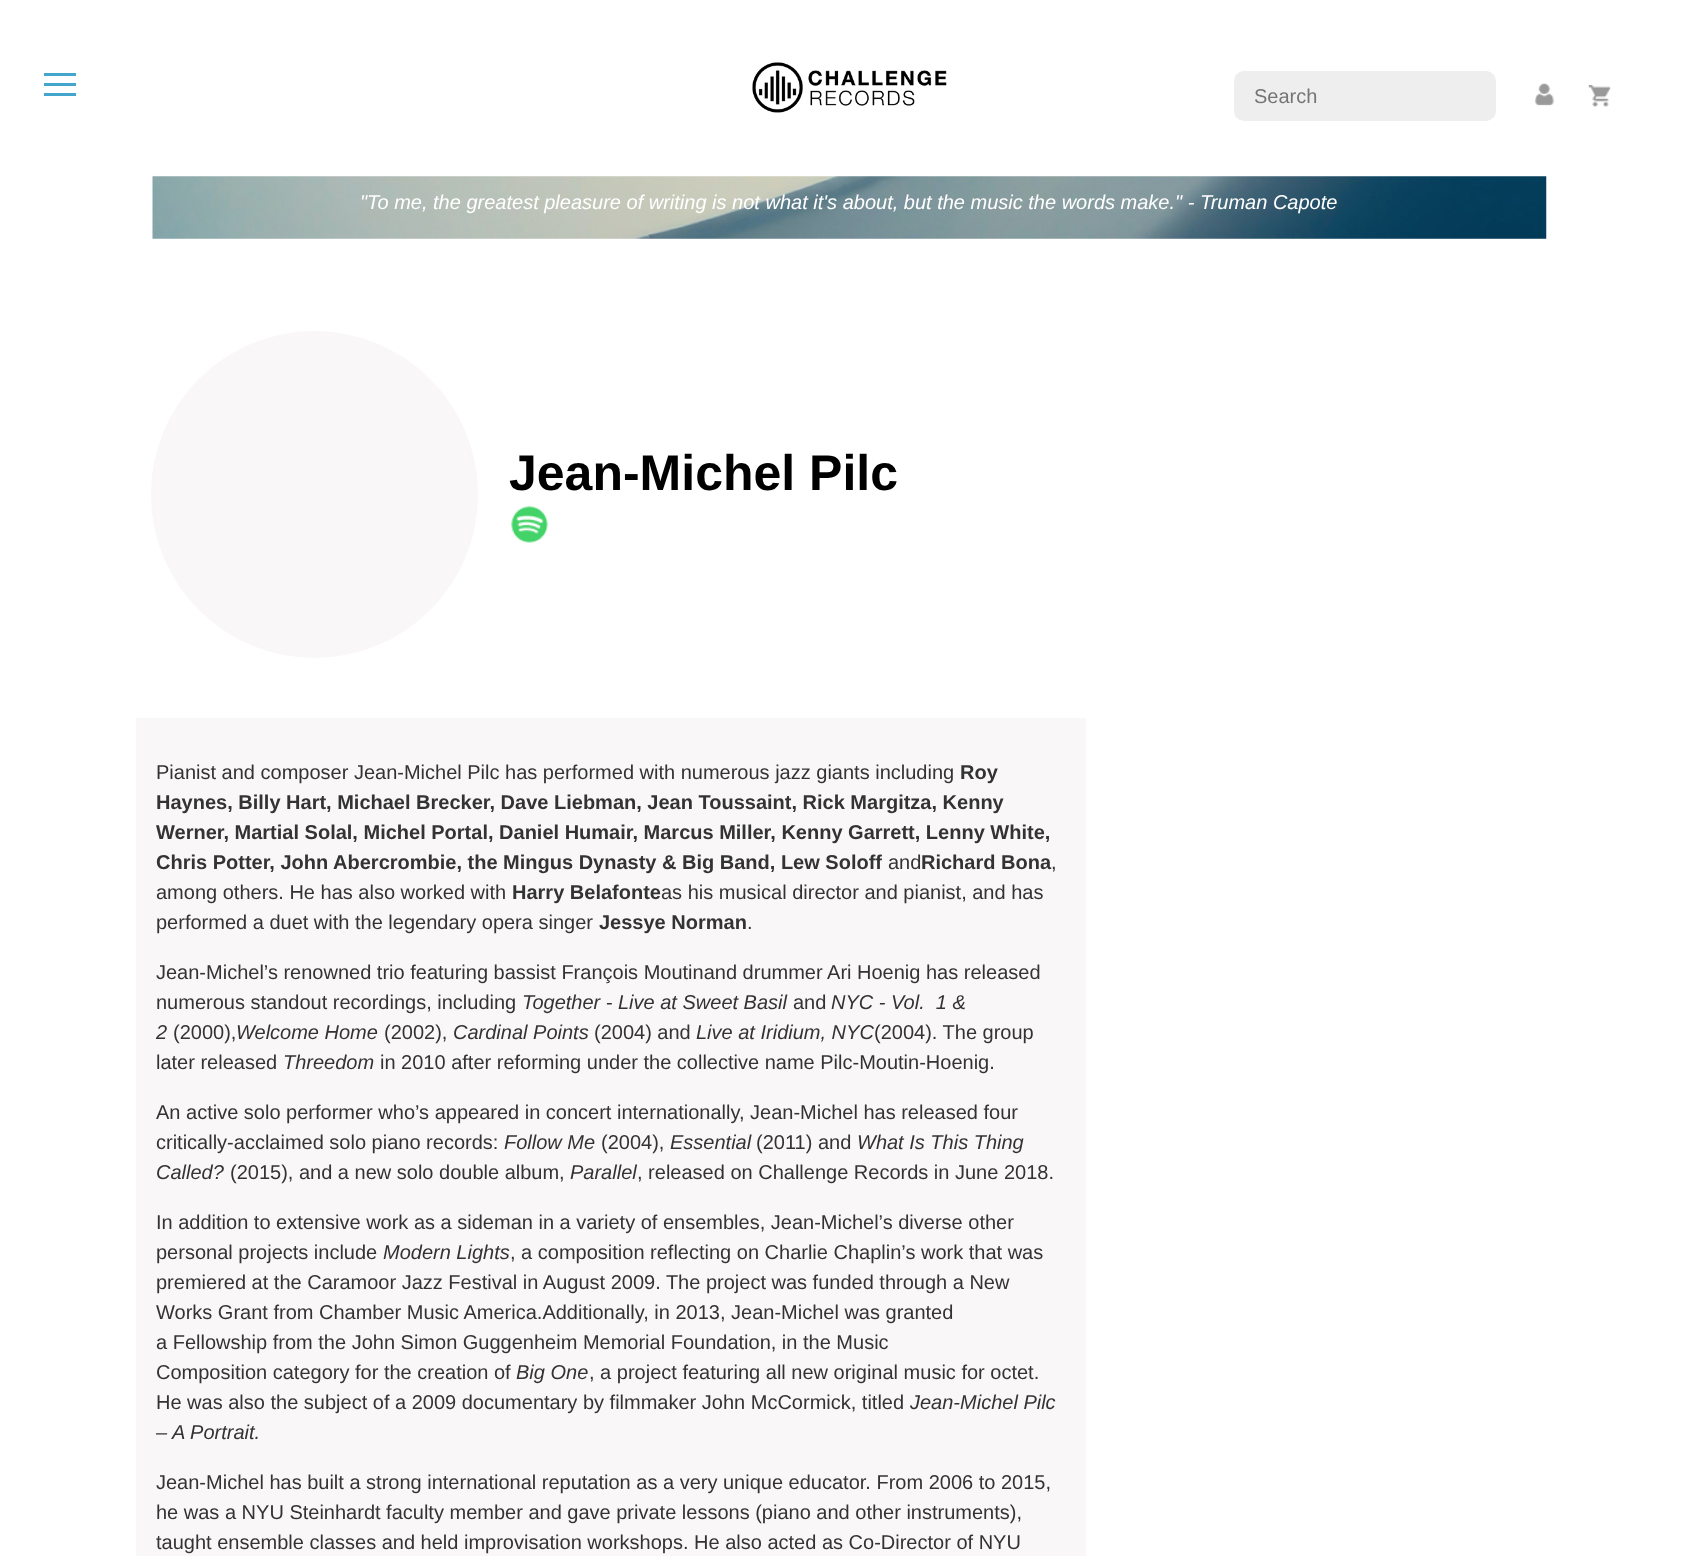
<!DOCTYPE html>
<meta charset="utf-8">
<style>body { margin: 0 } canvas { display: block }</style>
<canvas id="canvas" width="1697" height="1556"></canvas>
<script type="module">
  const canvas = document.getElementById("canvas");
  const g = canvas.getContext("2d");
  g.miterLimit = 4;
  g.fontKerning = "normal";
  function drawText(s, x, y, [font, color]) {
    g.font = font;
    g.fillStyle = color;
    g.fillText(s, x, y);
  }
  function fillBox(x, y, w, h, color) {
    g.fillStyle = color;
    g.fillRect(x, y, w, h);
  }
  function fillRounded(x, y, w, h, r, color) {
    g.fillStyle = color;
    g.beginPath();
    g.roundRect(x, y, w, h, r);
    g.fill();
  }
  async function drawPicture(src, x, y, w, h) {
    const img = new Image();
    img.src = src;
    await img.decode();
    g.drawImage(img, x, y, w, h);
  }

  const s1 = ["20px Liberation Sans", "#757575"];
  const s2 = ["italic 20px Liberation Sans", "#FFFFFF"];
  const s3 = ["bold 50px Liberation Sans", "#000000"];
  const s4 = ["20px Liberation Sans", "#333333"];
  const s5 = ["bold 20px Liberation Sans", "#333333"];
  const s6 = ["italic 20px Liberation Sans", "#333333"];

  fillBox(0, 0, 1697, 1556, "#FFFFFF");
  fillBox(44, 73, 32, 3, "#43A5CC");
  fillBox(44, 83, 32, 3, "#43A5CC");
  fillBox(44, 93, 32, 3, "#43A5CC");
  fillRounded(1234, 71, 262, 50, 10, "#EEEEEE");
  drawText("Search", 1254, 103, s1);
  await drawPicture("pic1.png", 1535, 83, 19, 23);
  await drawPicture("pic2.png", 1588, 84, 23, 23);
  await drawPicture("pic3.png", 752, 62, 195, 51);
  await drawPicture("pic4.png", 151, 175, 1396, 64);
  drawText("\"To me, the greatest pleasure of writing is not what it's about, but the music the words make.\" - Truman Capote", 360, 209, s2);
  g.fillStyle = "#F9F7F8";
  g.beginPath();
  g.arc(314.5, 494.5, 163.5, 0, Math.PI * 2);
  g.fill();
  drawText("Jean-Michel Pilc", 509, 490, s3);
  await drawPicture("pic5.png", 511, 506, 37, 37);
  fillBox(136, 718, 950, 838, "#F9F7F8");
  drawText("Pianist and composer Jean-Michel Pilc has performed with numerous jazz giants including", 156, 779, s4);
  drawText("Roy", 960, 779, s5);
  drawText("Haynes, Billy Hart, Michael Brecker, Dave Liebman, Jean Toussaint, Rick Margitza, Kenny", 156, 809, s5);
  drawText("Werner, Martial Solal, Michel Portal, Daniel Humair, Marcus Miller, Kenny Garrett, Lenny White,", 156, 839, s5);
  drawText("Chris Potter, John Abercrombie, the Mingus Dynasty & Big Band, Lew Soloff", 156, 869, s5);
  drawText("and", 888, 869, s4);
  drawText("Richard Bona", 921, 869, s5);
  drawText(",", 1051, 869, s4);
  drawText("among others. He has also worked with", 156, 899, s4);
  drawText("Harry Belafonte", 512, 899, s5);
  drawText("as his musical director and pianist, and has", 661, 899, s4);
  drawText("performed a duet with the legendary opera singer", 156, 929, s4);
  drawText("Jessye Norman", 599, 929, s5);
  drawText(".", 747, 929, s4);
  drawText("Jean-Michel’s renowned trio featuring bassist François Moutinand drummer Ari Hoenig has released", 156, 979, s4);
  drawText("numerous standout recordings, including", 156, 1009, s4);
  drawText("Together - Live at Sweet Basil", 522, 1009, s6);
  drawText("and", 793, 1009, s4);
  drawText("NYC - Vol.  1 &", 831, 1009, s6);
  drawText("2", 156, 1039, s6);
  drawText("(2000),", 173, 1039, s4);
  drawText("Welcome Home", 236, 1039, s6);
  drawText("(2002),", 384, 1039, s4);
  drawText("Cardinal Points", 453, 1039, s6);
  drawText("(2004) and", 594, 1039, s4);
  drawText("Live at Iridium, NYC", 696, 1039, s6);
  drawText("(2004). The group", 874, 1039, s4);
  drawText("later released", 156, 1069, s4);
  drawText("Threedom", 283, 1069, s6);
  drawText("in 2010 after reforming under the collective name Pilc-Moutin-Hoenig.", 380, 1069, s4);
  drawText("An active solo performer who’s appeared in concert internationally, Jean-Michel has released four", 156, 1119, s4);
  drawText("critically-acclaimed solo piano records:", 156, 1149, s4);
  drawText("Follow Me", 504, 1149, s6);
  drawText("(2004),", 601, 1149, s4);
  drawText("Essential", 670, 1149, s6);
  drawText("(2011) and", 756, 1149, s4);
  drawText("What Is This Thing", 857, 1149, s6);
  drawText("Called?", 156, 1179, s6);
  drawText("(2015), and a new solo double album,", 230, 1179, s4);
  drawText("Parallel", 570, 1179, s6);
  drawText(", released on Challenge Records in June 2018.", 637, 1179, s4);
  drawText("In addition to extensive work as a sideman in a variety of ensembles, Jean-Michel’s diverse other", 156, 1229, s4);
  drawText("personal projects include", 156, 1259, s4);
  drawText("Modern Lights", 383, 1259, s6);
  drawText(", a composition reflecting on Charlie Chaplin’s work that was", 510, 1259, s4);
  drawText("premiered at the Caramoor Jazz Festival in August 2009. The project was funded through a New", 156, 1289, s4);
  drawText("Works Grant from Chamber Music America.Additionally, in 2013, Jean-Michel was granted", 156, 1319, s4);
  drawText("a Fellowship from the John Simon Guggenheim Memorial Foundation, in the Music", 156, 1349, s4);
  drawText("Composition category for the creation of", 156, 1379, s4);
  drawText("Big One", 516, 1379, s6);
  drawText(", a project featuring all new original music for octet.", 589, 1379, s4);
  drawText("He was also the subject of a 2009 documentary by filmmaker John McCormick, titled", 156, 1409, s4);
  drawText("Jean-Michel Pilc", 910, 1409, s6);
  drawText("– A Portrait.", 156, 1439, s6);
  drawText("Jean-Michel has built a strong international reputation as a very unique educator. From 2006 to 2015,", 156, 1489, s4);
  drawText("he was a NYU Steinhardt faculty member and gave private lessons (piano and other instruments),", 156, 1519, s4);
  drawText("taught ensemble classes and held improvisation workshops. He also acted as Co-Director of NYU", 156, 1549, s4);
</script>
